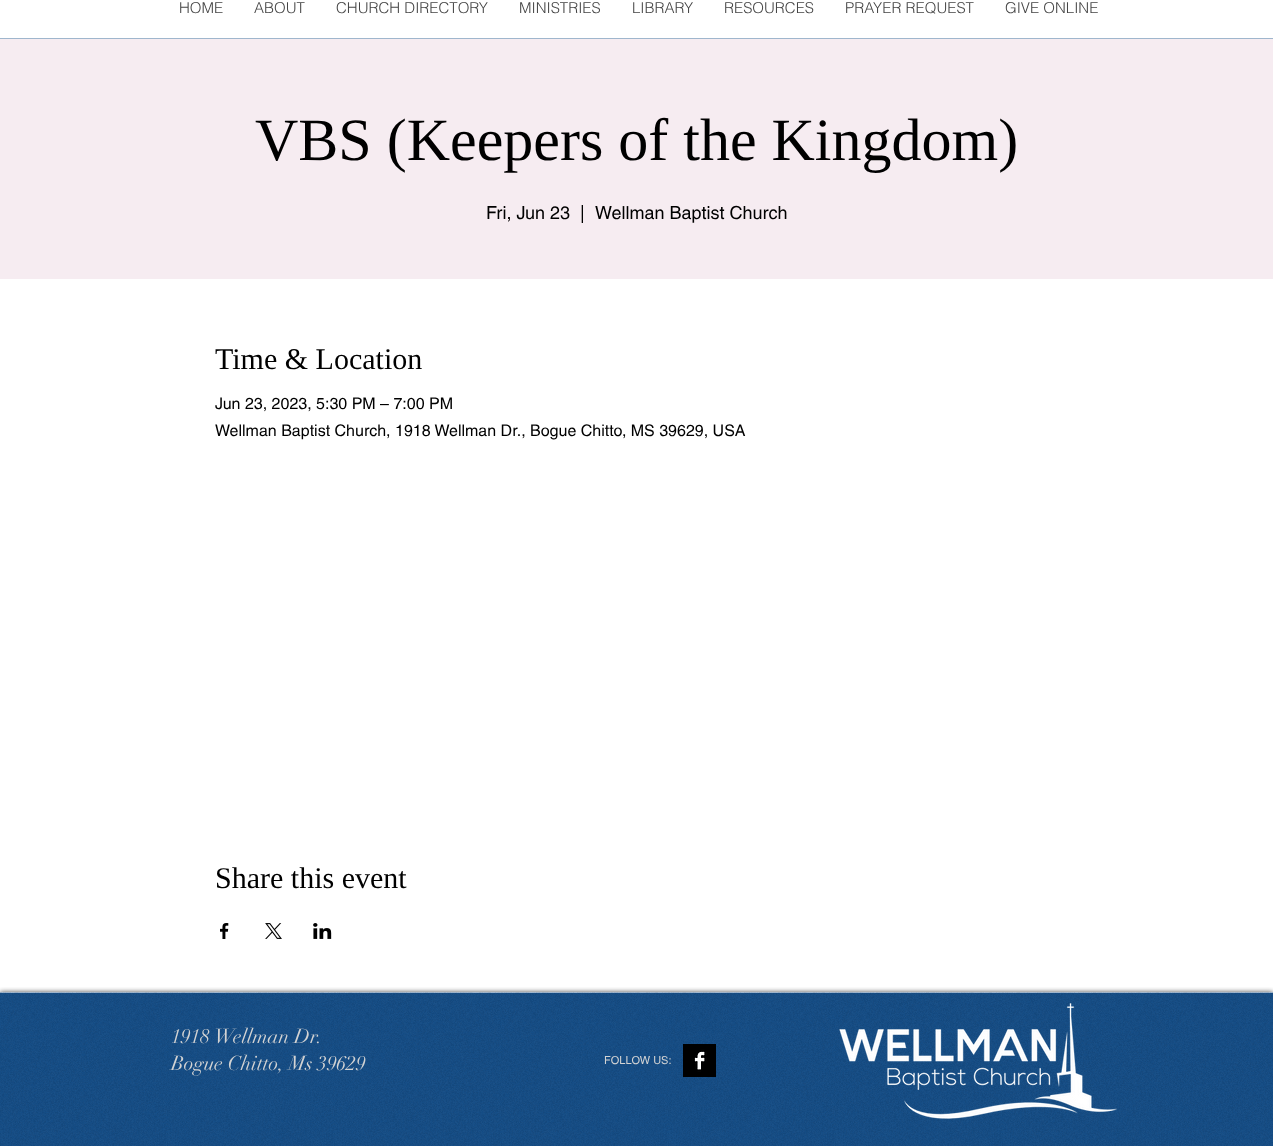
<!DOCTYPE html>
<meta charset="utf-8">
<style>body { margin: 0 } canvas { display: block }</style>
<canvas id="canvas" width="1273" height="1146"></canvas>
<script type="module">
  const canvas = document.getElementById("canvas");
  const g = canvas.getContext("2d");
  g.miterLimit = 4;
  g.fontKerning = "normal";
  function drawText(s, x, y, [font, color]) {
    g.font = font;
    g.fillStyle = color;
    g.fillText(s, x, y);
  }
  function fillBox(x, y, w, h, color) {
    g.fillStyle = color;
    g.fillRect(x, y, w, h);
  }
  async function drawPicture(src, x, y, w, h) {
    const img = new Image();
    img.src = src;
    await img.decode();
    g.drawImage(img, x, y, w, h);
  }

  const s1 = ["300 15px helvetica", "#444444"];
  const s2 = ["60px Liberation Serif", "#000000"];
  const s3 = ["18px helvetica", "#000000"];
  const s4 = ["30px Liberation Serif", "#000000"];
  const s5 = ["16px helvetica", "#000000"];
  const s6 = ["20px didot", "#D3D3D3"];
  const s7 = ["11px helvetica", "#D3D3D3"];

  fillBox(0, 0, 1273, 1146, "#FFFFFF");
  drawText("HOME", 179, 13, s1);
  drawText("ABOUT", 254, 13, s1);
  drawText("CHURCH DIRECTORY", 336, 13, s1);
  drawText("MINISTRIES", 519, 13, s1);
  drawText("LIBRARY", 632, 13, s1);
  drawText("RESOURCES", 724, 13, s1);
  drawText("PRAYER REQUEST", 845, 13, s1);
  drawText("GIVE ONLINE", 1005, 13, s1);
  fillBox(0, 38, 1273, 1, "#9FB6CD");
  fillBox(0, 39, 1273, 240, "#F6ECF1");
  drawText("VBS (Keepers of the Kingdom)", 255, 160, s2);
  drawText("Fri, Jun 23", 486, 219, s3);
  drawText("|", 580, 219, s3);
  drawText("Wellman Baptist Church", 595, 219, s3);
  drawText("Time & Location", 215, 369, s4);
  drawText("Jun 23, 2023, 5:30 PM – 7:00 PM", 215, 409, s5);
  drawText("Wellman Baptist Church, 1918 Wellman Dr., Bogue Chitto, MS 39629, USA", 215, 436, s5);
  drawText("Share this event", 215, 888, s4);
  await drawPicture("pic1.png", 220, 923, 9, 16);
  await drawPicture("pic2.png", 265, 923, 17, 16);
  await drawPicture("pic3.png", 313, 923, 19, 16);
  fillBox(0, 993, 1273, 153, "#154D86");
  fillBox(0, 992, 1273, 1, "#A0B6CE");
  g.save();
  g.beginPath();
  g.rect(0, 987, 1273, 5);
  g.clip();
  g.fillStyle = "rgba(0, 0, 0, 0.7)";
  g.filter = "blur(2.5px)";
  g.beginPath();
  g.rect(0, 992, 1273, 154);
  g.fill();
  g.filter = "none";
  g.restore();
  await drawPicture("pic4.png", 0, 992, 1273, 154);
  drawText("1918 Wellman Dr.", 171, 1043, s6);
  drawText("Bogue Chitto, Ms 39629", 171, 1070, s6);
  drawText("FOLLOW US:", 604, 1064, s7);
  await drawPicture("pic5.png", 683, 1044, 33, 33);
  await drawPicture("pic6.png", 839, 1003, 278, 116);
</script>
